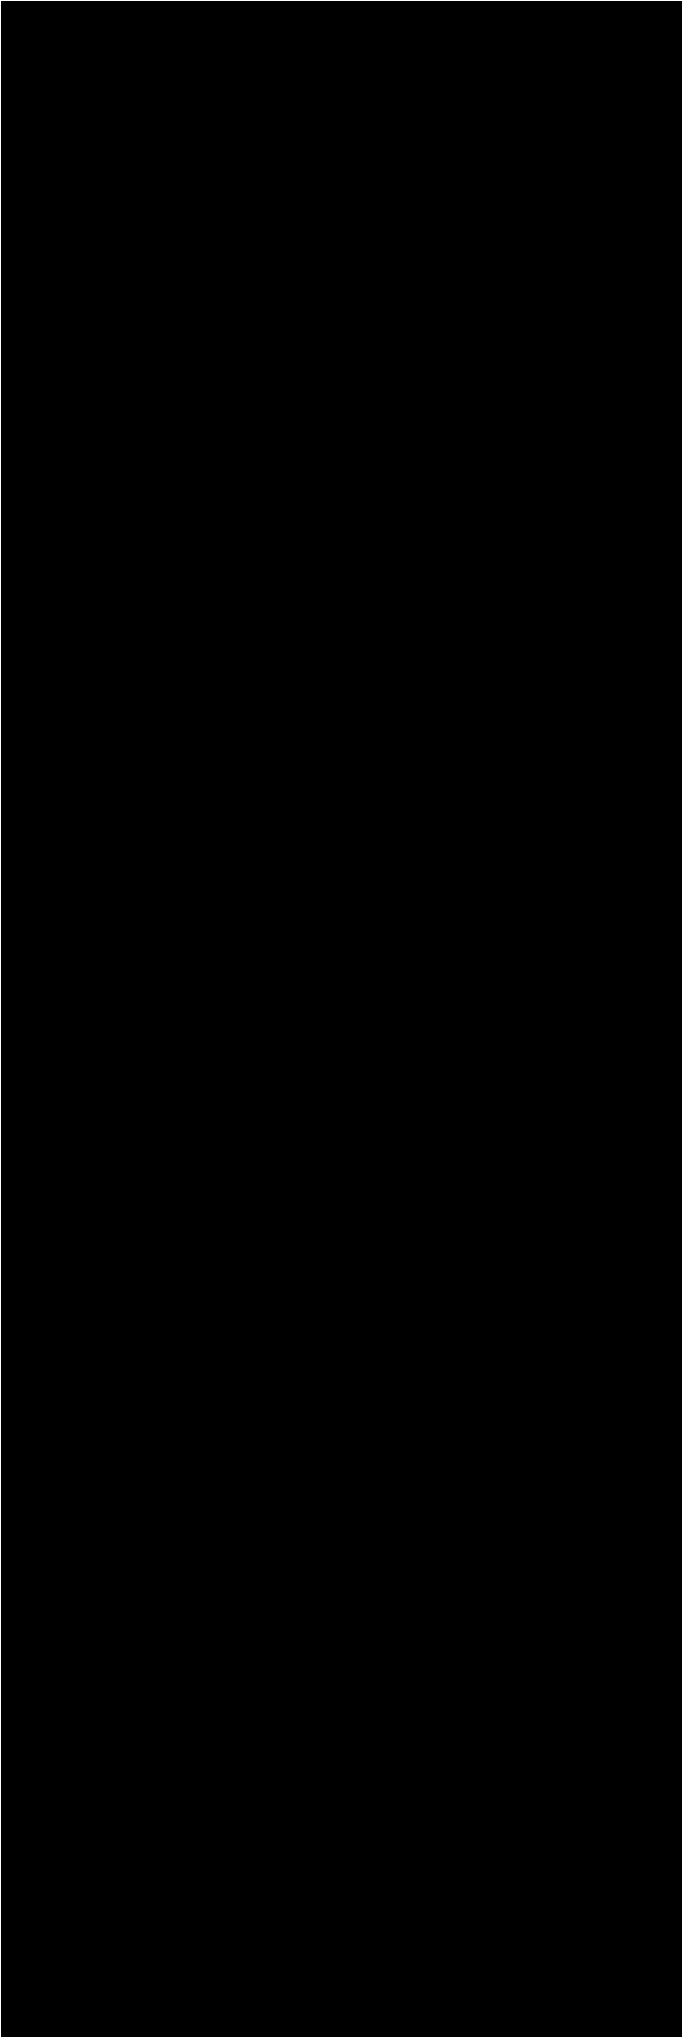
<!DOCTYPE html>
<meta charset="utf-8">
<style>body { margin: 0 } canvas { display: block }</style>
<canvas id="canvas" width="682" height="2037"></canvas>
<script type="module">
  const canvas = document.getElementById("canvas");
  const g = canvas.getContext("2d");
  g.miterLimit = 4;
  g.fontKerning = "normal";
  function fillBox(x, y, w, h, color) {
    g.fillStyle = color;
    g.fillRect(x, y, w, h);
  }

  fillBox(0, 0, 682, 2037, "#FFFFFF");
  fillBox(1, 1, 681, 2036, "#000000");
</script>
